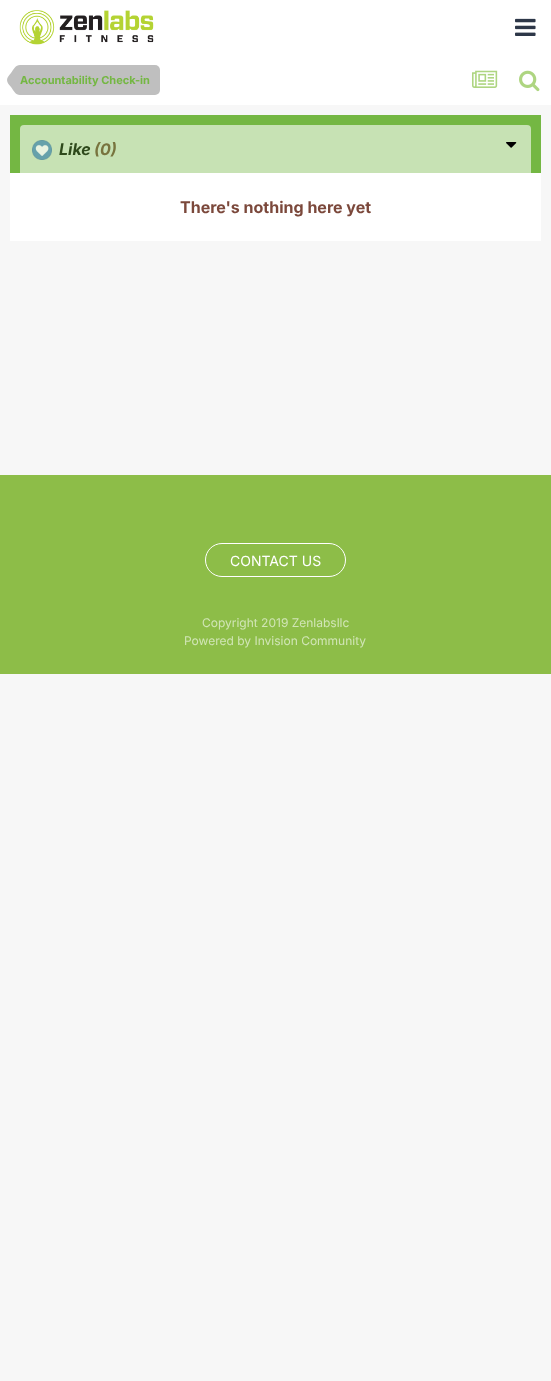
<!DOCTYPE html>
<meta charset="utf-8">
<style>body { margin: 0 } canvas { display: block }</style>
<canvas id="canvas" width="551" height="1381"></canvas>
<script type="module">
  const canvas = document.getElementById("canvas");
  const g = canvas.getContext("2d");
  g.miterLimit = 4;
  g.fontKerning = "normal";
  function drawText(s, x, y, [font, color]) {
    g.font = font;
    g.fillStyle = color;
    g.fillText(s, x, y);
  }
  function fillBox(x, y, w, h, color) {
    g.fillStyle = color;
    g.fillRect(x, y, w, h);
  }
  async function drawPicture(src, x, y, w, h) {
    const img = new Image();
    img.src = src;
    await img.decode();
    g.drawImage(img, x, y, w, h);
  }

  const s1 = ["bold 11px Inter", "#74B743"];
  const s2 = ["italic bold 16px Inter", "#2E491B"];
  const s3 = ["italic bold 16px Inter", "#78743E"];
  const s4 = ["bold 16px Inter", "#7B483B"];
  const s5 = ["14px Inter", "#FFFFFF"];
  const s6 = ["12px Inter", "#D1E5B6"];

  fillBox(0, 0, 551, 1381, "#F7F7F7");
  fillBox(0, 0, 551, 105, "#FFFFFF");
  await drawPicture("pic1.png", 19, 10, 135, 35);
  await drawPicture("pic2.png", 515, 18, 21, 18);
  g.fillStyle = "#BFBFBF";
  g.beginPath();
  g.roundRect(20, 65, 140, 30, [0, 5, 5, 0]);
  g.fill();
  g.beginPath();
  g.moveTo(20, 80);
  g.lineTo(20, 95);
  g.bezierCurveTo(15.5, 95, 13.5, 90.5, 11, 87);
  g.bezierCurveTo(9.5, 85, 7, 83, 7, 80);
  g.closePath();
  g.moveTo(20, 80);
  g.lineTo(7, 80);
  g.bezierCurveTo(7, 77, 9.5, 75, 11, 73);
  g.bezierCurveTo(13.5, 69.5, 15.5, 65, 20, 65);
  g.closePath();
  g.fill();
  drawText("Accountability Check-in", 20, 84, s1);
  await drawPicture("pic3.png", 472, 70, 26, 18);
  await drawPicture("pic4.png", 519, 70, 21, 22);
  fillBox(10, 115, 531, 58, "#74B743");
  g.fillStyle = "#C7E2B4";
  g.beginPath();
  g.roundRect(20, 125, 511, 48, [4, 4, 0, 0]);
  g.fill();
  await drawPicture("pic5.png", 32, 140, 20, 20);
  drawText("Like", 59, 155, s2);
  drawText("(0)", 94, 155, s3);
  await drawPicture("pic6.png", 506, 142, 11, 6);
  fillBox(10, 173, 531, 68, "#FFFFFF");
  drawText("There's nothing here yet", 180, 213, s4);
  fillBox(0, 475, 551, 199, "#8DBD48");
  g.beginPath();
  g.roundRect(205.5, 543.5, 140, 33, 16.5);
  g.strokeStyle = "#FFFFFF";
  g.stroke();
  drawText("CONTACT US", 230, 566, s5);
  drawText("Copyright 2019 Zenlabsllc", 202, 627, s6);
  drawText("Powered by Invision Community", 184, 645, s6);
</script>
